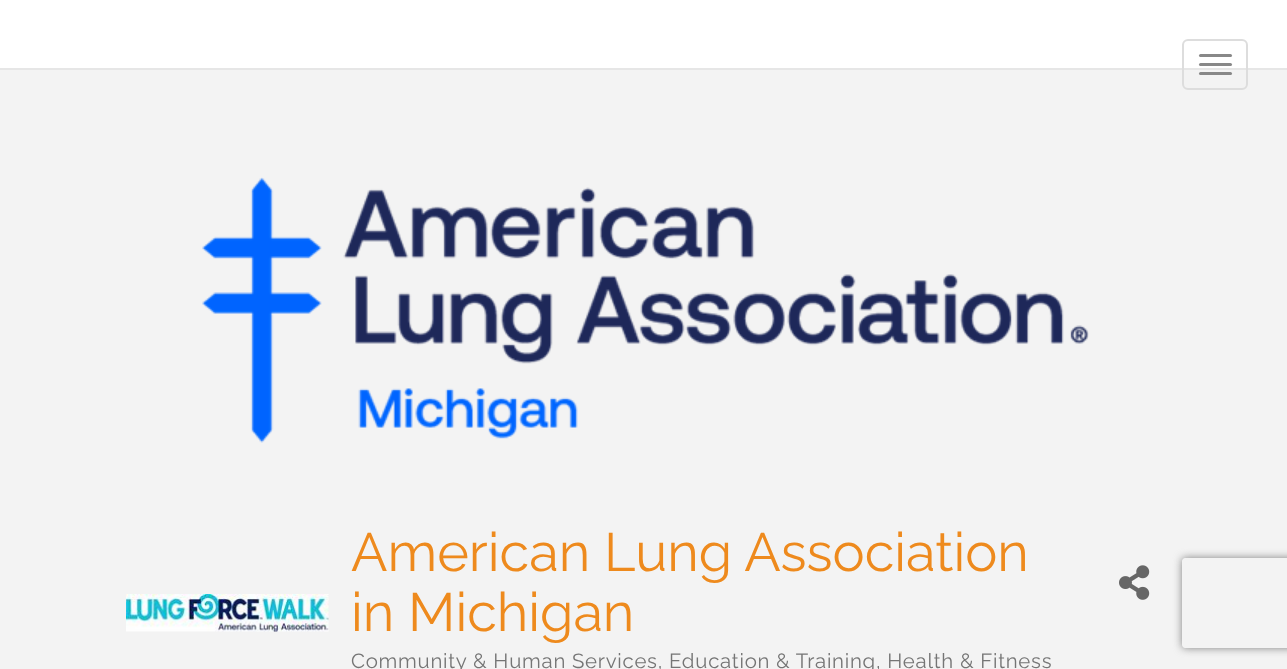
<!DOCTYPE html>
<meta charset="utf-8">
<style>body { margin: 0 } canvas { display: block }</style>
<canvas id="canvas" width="1287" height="669"></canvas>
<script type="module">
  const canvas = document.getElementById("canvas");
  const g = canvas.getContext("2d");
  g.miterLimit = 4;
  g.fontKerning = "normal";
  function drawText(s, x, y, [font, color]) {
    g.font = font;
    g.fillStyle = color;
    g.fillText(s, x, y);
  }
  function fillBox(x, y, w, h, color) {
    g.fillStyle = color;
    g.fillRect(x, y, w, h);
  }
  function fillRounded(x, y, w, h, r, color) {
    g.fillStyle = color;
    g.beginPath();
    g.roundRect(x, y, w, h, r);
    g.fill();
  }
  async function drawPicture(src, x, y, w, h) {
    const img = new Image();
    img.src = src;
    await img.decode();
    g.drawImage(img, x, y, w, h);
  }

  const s1 = ["54px Raleway", "#EE8A1D"];
  const s2 = ["20.4px Raleway", "#757575"];

  fillBox(0, 0, 1287, 669, "#F3F3F3");
  fillBox(0, 0, 1287, 68, "#FFFFFF");
  fillBox(0, 68, 1287, 2, "#E6E6E6");
  g.beginPath();
  g.roundRect(1183, 40, 64, 49, 5);
  g.strokeStyle = "#DDDDDD";
  g.lineWidth = 2;
  g.stroke();
  fillRounded(1199, 54, 33, 3, 1.5, "#888888");
  fillRounded(1199, 63, 33, 3, 1.5, "#888888");
  fillRounded(1199, 72, 33, 3, 1.5, "#888888");
  await drawPicture("pic1.png", 202, 177, 887, 266);
  await drawPicture("pic2.png", 126, 594, 203, 38);
  drawText("American Lung Association", 351, 571, s1);
  drawText("in Michigan", 351, 631, s1);
  await drawPicture("pic3.png", 1119, 565, 31, 35);
  g.letterSpacing = "0.75px";
  drawText("Community & Human Services, Education & Training, Health & Fitness", 351, 668, s2);
  g.save();
  g.beginPath();
  g.moveTo(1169, 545);
  g.lineTo(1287, 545);
  g.lineTo(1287, 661);
  g.lineTo(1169, 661);
  g.closePath();
  g.moveTo(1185, 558);
  g.lineTo(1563, 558);
  g.bezierCurveTo(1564.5, 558, 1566, 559.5, 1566, 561);
  g.lineTo(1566, 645);
  g.bezierCurveTo(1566, 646.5, 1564.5, 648, 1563, 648);
  g.lineTo(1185, 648);
  g.bezierCurveTo(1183.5, 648, 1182, 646.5, 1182, 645);
  g.lineTo(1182, 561);
  g.bezierCurveTo(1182, 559.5, 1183.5, 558, 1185, 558);
  g.closePath();
  g.clip("evenodd");
  g.fillStyle = "#808080";
  g.filter = "blur(4px)";
  g.beginPath();
  g.roundRect(1182, 558, 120, 90, 3);
  g.fill();
  g.filter = "none";
  g.restore();
</script>
